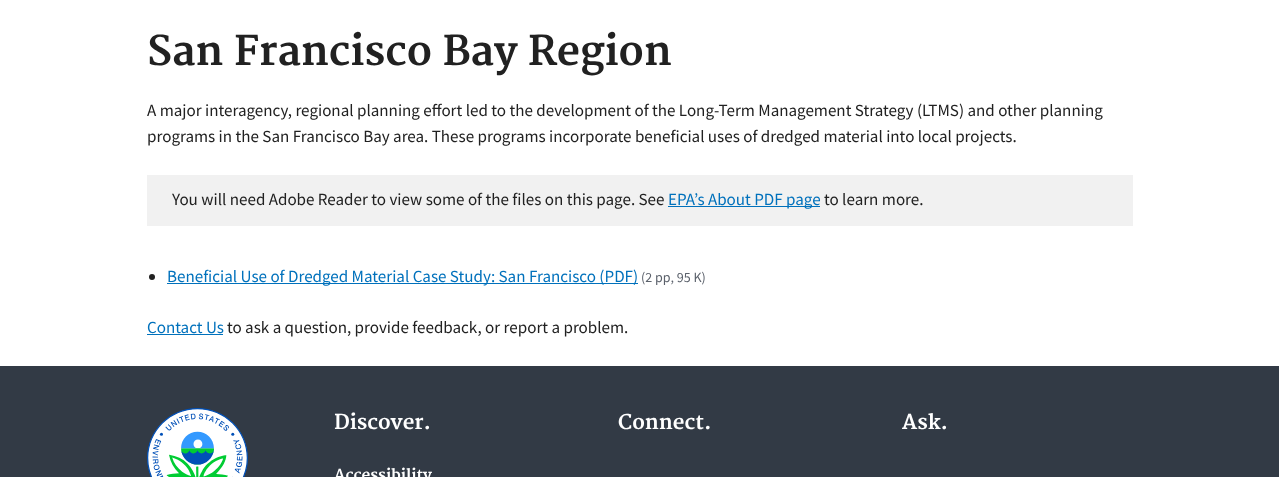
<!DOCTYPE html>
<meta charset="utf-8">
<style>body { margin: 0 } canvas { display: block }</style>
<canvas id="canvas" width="1279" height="477"></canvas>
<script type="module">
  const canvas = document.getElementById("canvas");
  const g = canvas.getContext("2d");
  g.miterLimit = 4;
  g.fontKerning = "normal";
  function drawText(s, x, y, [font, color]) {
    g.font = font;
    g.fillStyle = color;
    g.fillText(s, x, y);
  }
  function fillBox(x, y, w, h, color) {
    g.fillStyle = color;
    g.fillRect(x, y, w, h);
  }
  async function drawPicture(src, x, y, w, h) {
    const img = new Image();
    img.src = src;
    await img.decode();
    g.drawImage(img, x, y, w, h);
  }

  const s1 = ["bold 40px Merriweather", "#212121"];
  const s2 = ["17px Source Sans Pro", "#212121"];
  const s3 = ["17px Source Sans Pro", "#0071BC"];
  const s4 = ["14px Source Sans Pro", "#5B616B"];
  const s5 = ["bold 20px Merriweather", "#FFFFFF"];
  const s6 = ["bold 15px Merriweather", "#FFFFFF"];

  fillBox(0, 0, 1279, 477, "#FFFFFF");
  drawText("San Francisco Bay Region", 147, 65, s1);
  drawText("A major interagency, regional planning effort led to the development of the Long-Term Management Strategy (LTMS) and other planning", 147, 116, s2);
  drawText("programs in the San Francisco Bay area. These programs incorporate beneficial uses of dredged material into local projects.", 147, 142, s2);
  fillBox(147, 175, 986, 51, "#F1F1F1");
  drawText("You will need Adobe Reader to view some of the files on this page. See", 172, 205, s2);
  fillBox(668, 206, 152, 1, "#0071BC");
  drawText("EPA’s About PDF page", 668, 205, s3);
  drawText("to learn more.", 824, 205, s2);
  g.beginPath();
  g.arc(152, 277, 3, 0, Math.PI * 2);
  g.fill();
  fillBox(167, 283, 471, 1, "#0071BC");
  drawText("Beneficial Use of Dredged Material Case Study: San Francisco (PDF)", 167, 282, s3);
  drawText("(2 pp, 95 K)", 641, 282, s4);
  drawText("Contact Us", 147, 333, s3);
  fillBox(147, 334, 76, 1, "#0071BC");
  drawText("to ask a question, provide feedback, or report a problem.", 227, 333, s2);
  fillBox(0, 366, 1279, 111, "#323A45");
  await drawPicture("pic1.png", 147, 408, 101, 69);
  drawText("Discover.", 334, 429, s5);
  drawText("Accessibility", 334, 480, s6);
  drawText("Connect.", 618, 429, s5);
  drawText("Ask.", 902, 429, s5);
</script>
